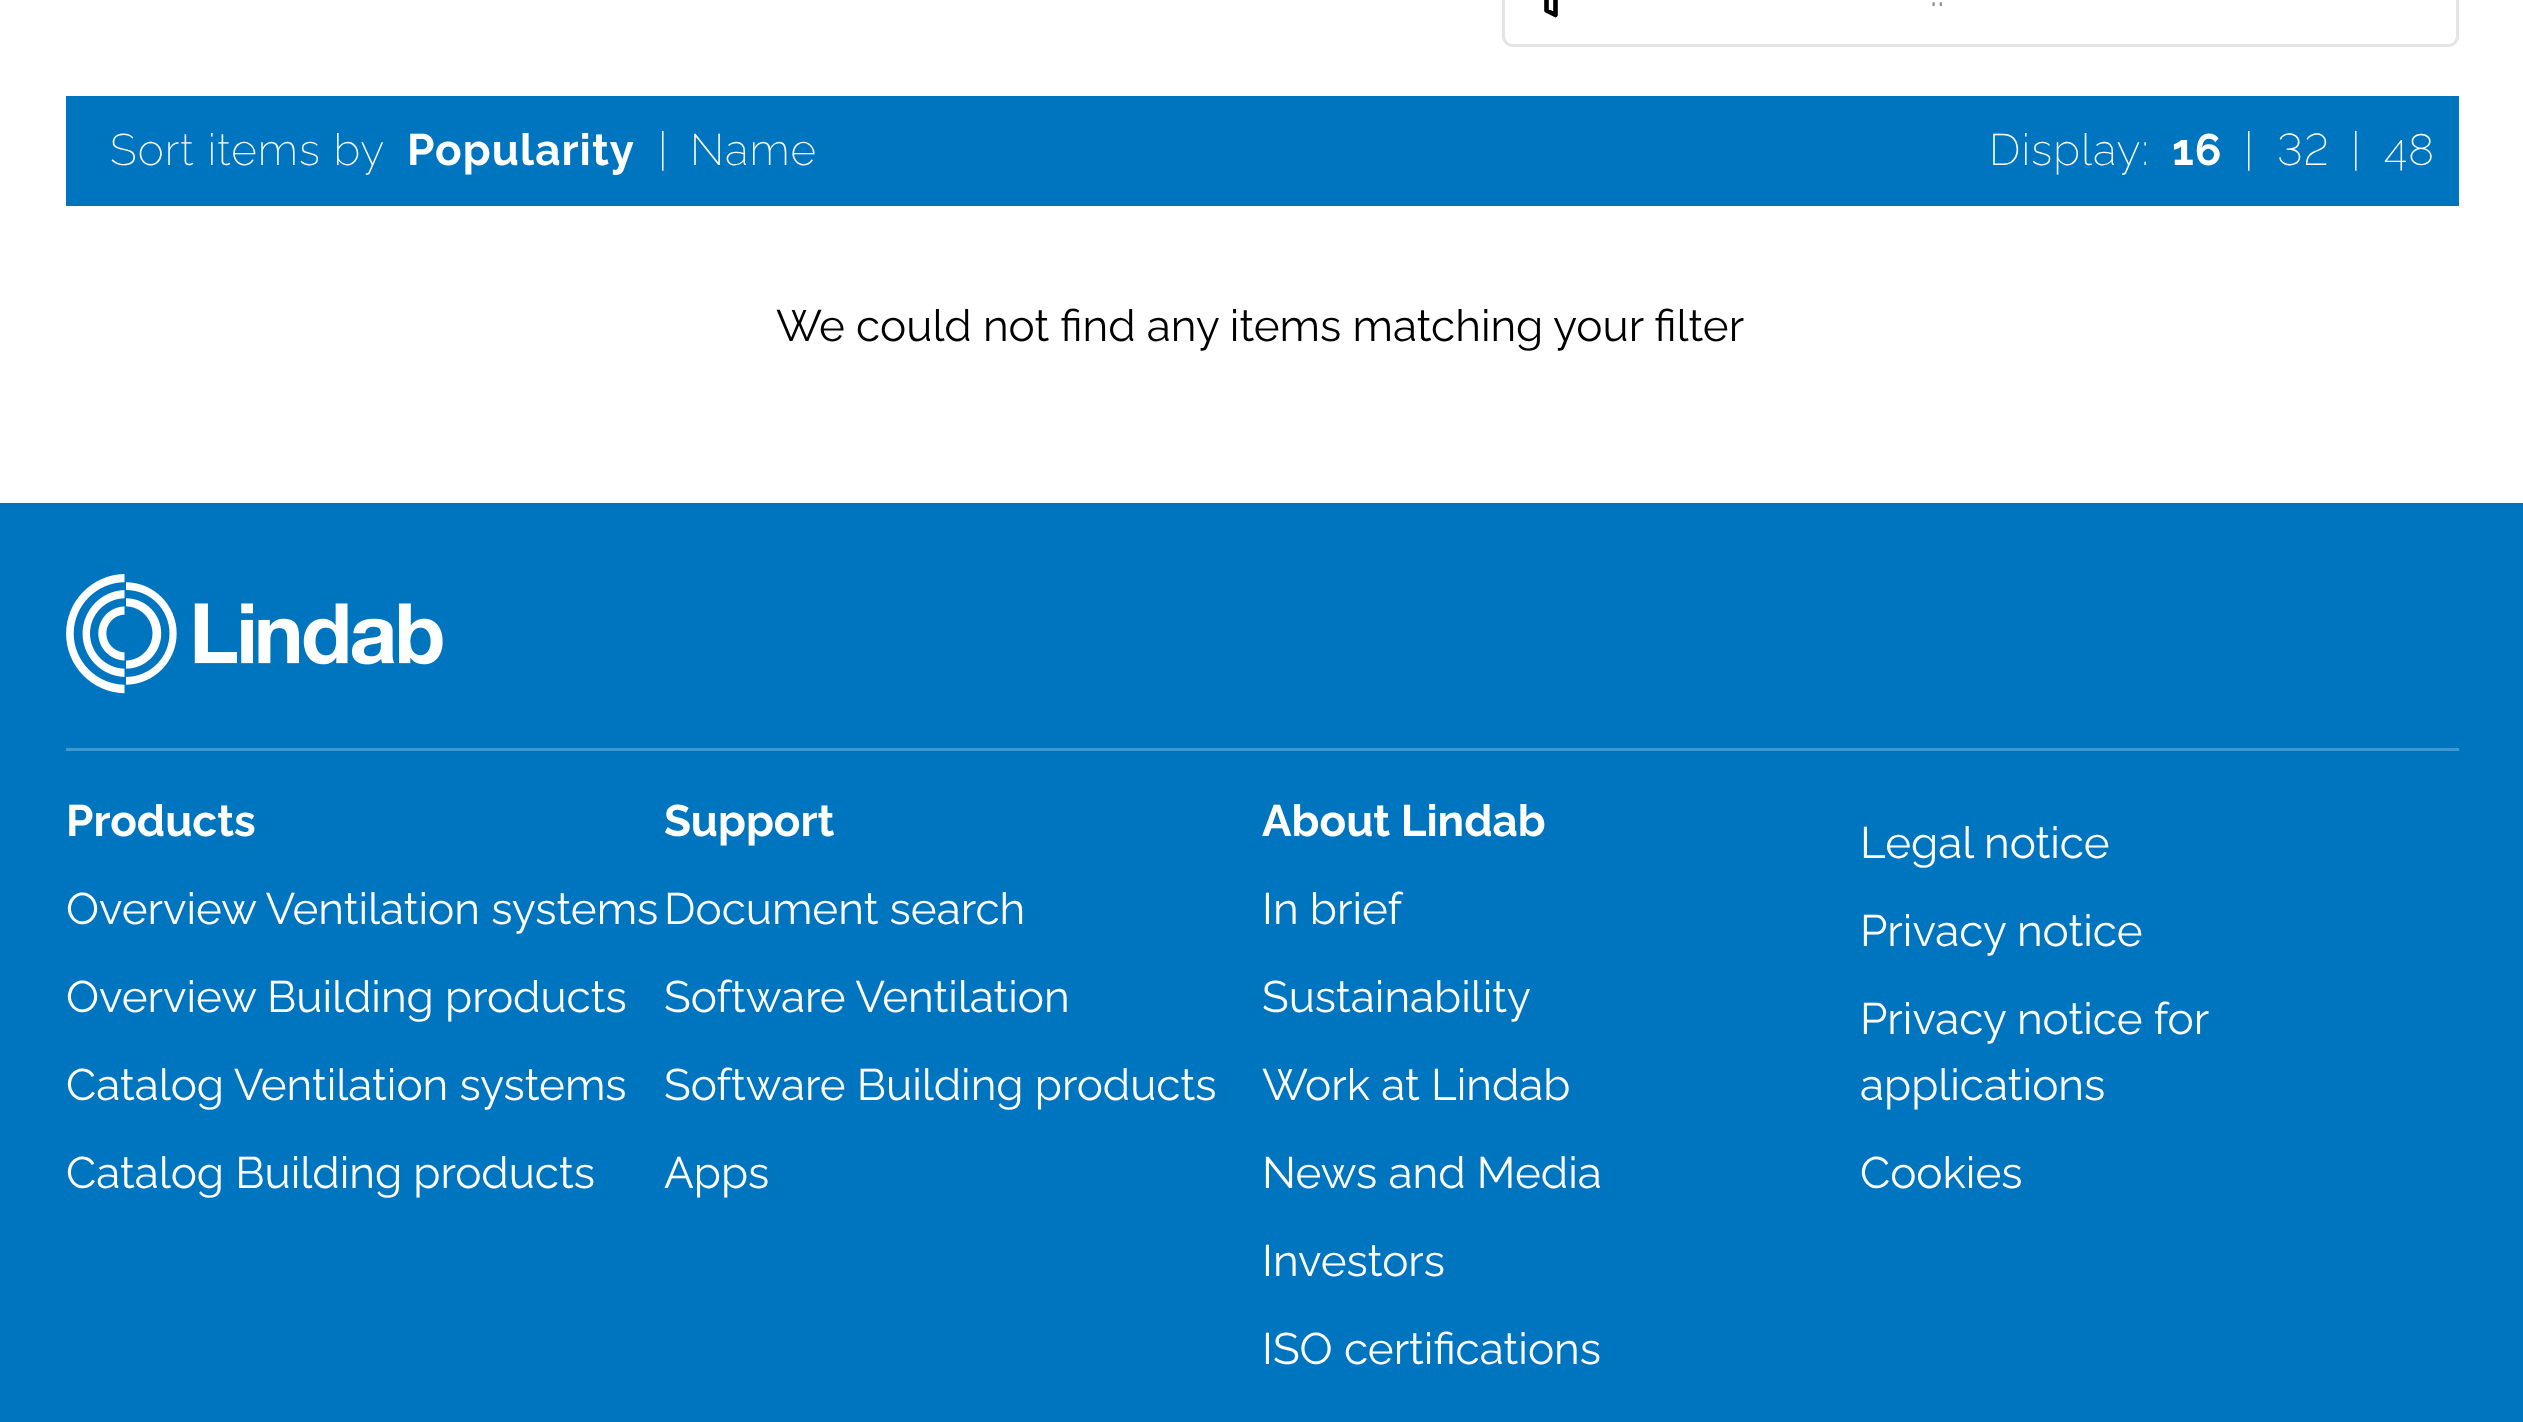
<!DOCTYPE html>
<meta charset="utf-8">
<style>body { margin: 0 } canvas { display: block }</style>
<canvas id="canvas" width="2523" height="1422"></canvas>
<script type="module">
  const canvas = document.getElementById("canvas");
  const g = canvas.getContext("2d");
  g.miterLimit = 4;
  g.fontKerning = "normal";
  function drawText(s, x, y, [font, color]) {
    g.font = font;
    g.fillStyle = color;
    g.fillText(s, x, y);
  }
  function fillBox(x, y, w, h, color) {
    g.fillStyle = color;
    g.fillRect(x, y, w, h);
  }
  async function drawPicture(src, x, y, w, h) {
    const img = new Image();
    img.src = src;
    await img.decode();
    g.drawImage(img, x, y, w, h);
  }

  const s1 = ["100 38px 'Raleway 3'", "#919191"];
  const s2 = ["100 44px Raleway", "#FFFFFF"];
  const s3 = ["100 44px 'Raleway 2'", "#FFFFFF"];
  const s4 = ["100 44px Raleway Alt", "#FFFFFF"];
  const s5 = ["100 44px 'Raleway 3'", "#000000"];
  const s6 = ["100 44px 'Raleway 3'", "#FFFFFF"];

  fillBox(0, 0, 2523, 1422, "#FFFFFF");
  g.beginPath();
  g.roundRect(1503.5, -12.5, 954, 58, 9.5);
  g.strokeStyle = "#E4E4E4";
  g.lineWidth = 3;
  g.stroke();
  g.beginPath();
  g.moveTo(1574, -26);
  g.lineTo(1528, -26);
  g.lineTo(1546.5, -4.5);
  g.lineTo(1546.5, 10.5);
  g.lineTo(1555.5, 15);
  g.lineTo(1555.5, -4.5);
  g.closePath();
  g.strokeStyle = "#000000";
  g.lineWidth = 4.6;
  g.lineCap = "round";
  g.lineJoin = "round";
  g.stroke();
  drawText("..", 1930, 6, s1);
  fillBox(66, 96, 2393, 110, "#0075BF");
  g.letterSpacing = "1.1px";
  drawText("Sort items by", 110, 165, s2);
  drawText("Popularity", 407, 165, s3);
  drawText("|", 658, 165, s2);
  drawText("Name", 690, 165, s2);
  drawText("Display:", 1989, 165, s2);
  drawText("16", 2172, 165, s3);
  drawText("|", 2244, 165, s2);
  drawText("32", 2277, 165, s4);
  drawText("|", 2351, 165, s2);
  drawText("48", 2384, 165, s2);
  g.letterSpacing = "0px";
  drawText("We could not find any items matching your filter", 776, 341, s5);
  fillBox(0, 503, 2523, 919, "#0075BF");
  await drawPicture("pic1.png", 66, 574, 377, 120);
  fillBox(66, 748, 2393, 3, "#4098CF");
  drawText("Products", 66, 836, s3);
  drawText("Overview Ventilation systems", 66, 924, s6);
  drawText("Overview Building products", 66, 1012, s6);
  drawText("Catalog Ventilation systems", 66, 1100, s6);
  drawText("Catalog Building products", 66, 1188, s6);
  drawText("Support", 664, 836, s3);
  drawText("Document search", 664, 924, s6);
  drawText("Software Ventilation", 664, 1012, s6);
  drawText("Software Building products", 664, 1100, s6);
  drawText("Apps", 664, 1188, s6);
  drawText("About Lindab", 1262, 836, s3);
  drawText("In brief", 1262, 924, s6);
  drawText("Sustainability", 1262, 1012, s6);
  drawText("Work at Lindab", 1262, 1100, s6);
  drawText("News and Media", 1262, 1188, s6);
  drawText("Investors", 1262, 1276, s6);
  drawText("ISO certifications", 1262, 1364, s6);
  drawText("Legal notice", 1860, 858, s6);
  drawText("Privacy notice", 1860, 946, s6);
  drawText("Privacy notice for", 1860, 1034, s6);
  drawText("applications", 1860, 1100, s6);
  drawText("Cookies", 1860, 1188, s6);
</script>
